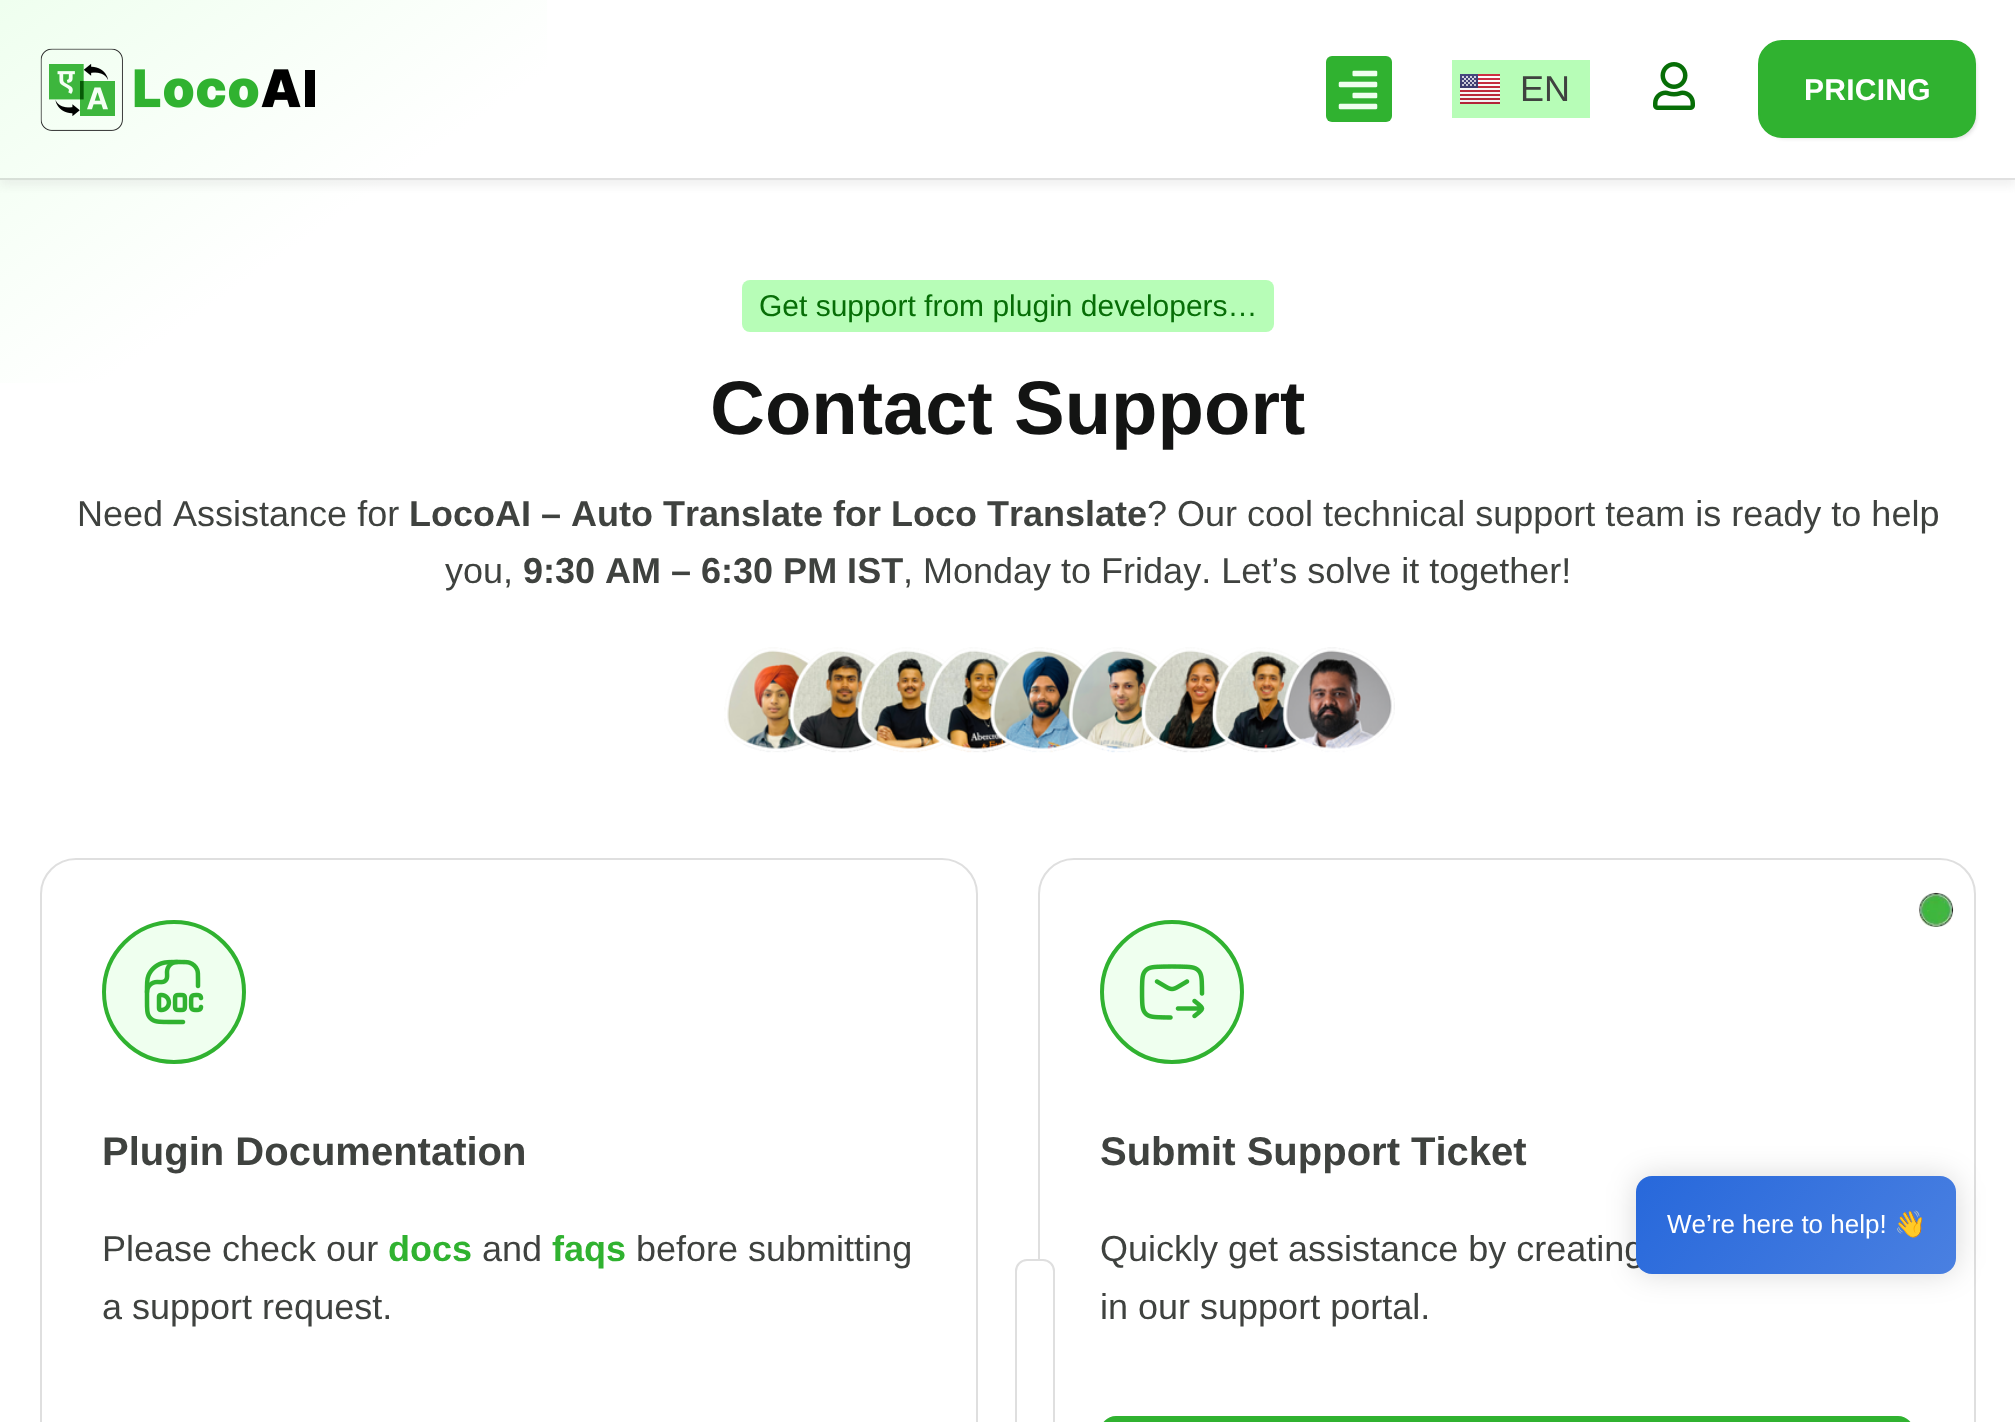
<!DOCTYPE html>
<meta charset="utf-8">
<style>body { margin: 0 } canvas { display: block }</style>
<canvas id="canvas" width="2015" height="1422"></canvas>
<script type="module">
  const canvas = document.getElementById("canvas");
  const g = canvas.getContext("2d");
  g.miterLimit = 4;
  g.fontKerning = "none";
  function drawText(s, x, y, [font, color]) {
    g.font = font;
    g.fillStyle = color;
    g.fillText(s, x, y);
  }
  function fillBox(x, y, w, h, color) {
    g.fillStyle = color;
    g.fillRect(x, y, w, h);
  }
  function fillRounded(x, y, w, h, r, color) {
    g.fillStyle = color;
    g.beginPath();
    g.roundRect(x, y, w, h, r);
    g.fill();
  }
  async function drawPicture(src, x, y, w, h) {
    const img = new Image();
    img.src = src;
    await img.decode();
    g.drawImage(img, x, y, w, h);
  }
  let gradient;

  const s1 = ["36px Liberation Sans", "#3F423F"];
  const s2 = ["bold 30px Liberation Sans", "#FFFFFF"];
  const s3 = ["30px Liberation Sans", "#076E07"];
  const s4 = ["bold 76px Liberation Sans", "#131413"];
  const s5 = ["bold 36px Liberation Sans", "#3F423F"];
  const s6 = ["bold 40px Liberation Sans", "#3F423F"];
  const s7 = ["bold 36px Liberation Sans", "#30B230"];
  const s8 = ["26px Liberation Sans", "#FFFFFF"];
  const s9 = ["26px Noto Color Emoji", "#FFFFFF"];

  fillBox(0, 0, 2015, 1422, "#FFFFFF");
  gradient = g.createLinearGradient(475, -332, 1541, 1190);
  gradient.addColorStop(0, "#EFFFEF");
  gradient.addColorStop(0.2, "#FFFFFF");
  g.fillStyle = gradient;
  g.fillRect(0, 0, 547, 383);
  gradient = g.createLinearGradient(475, -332, 1541, 1190);
  gradient.addColorStop(0, "#D2E0D2");
  gradient.addColorStop(0.2, "#E0E0E0");
  g.fillStyle = gradient;
  g.fillRect(0, 178, 2015, 2);
  g.save();
  g.beginPath();
  g.rect(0, 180, 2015, 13);
  g.clip();
  g.fillStyle = "rgba(199, 199, 199, 0.25)";
  g.filter = "blur(5px)";
  g.beginPath();
  g.rect(0, 6, 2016, 180);
  g.fill();
  g.filter = "none";
  g.restore();
  await drawPicture("pic1.png", 40, 48, 275, 83);
  fillRounded(1326, 56, 66, 66, 6, "#30B230");
  await drawPicture("pic2.png", 1338, 70, 40, 40);
  fillBox(1452, 60, 138, 58, "#B7FDB7");
  await drawPicture("pic3.png", 1460, 74, 40, 30);
  drawText("EN", 1520, 101, s1);
  await drawPicture("pic4.png", 1653, 62, 42, 48);
  g.fillStyle = "rgba(0, 0, 0, 0.15)";
  g.filter = "blur(2px)";
  g.beginPath();
  g.roundRect(1766, 48, 210, 90, 20);
  g.fill();
  g.filter = "none";
  g.fillStyle = "#30B230";
  g.beginPath();
  g.roundRect(1759, 41, 216, 96, 23);
  g.fill();
  g.strokeStyle = "#30B230";
  g.lineWidth = 2;
  g.stroke();
  g.letterSpacing = "0.25px";
  drawText("PRICING", 1804, 100, s2);
  fillRounded(742, 280, 532, 52, 8, "#B7FDB7");
  g.letterSpacing = "0px";
  drawText("Get support from plugin developers…", 759, 316, s3);
  drawText("Contact Support", 710, 434, s4);
  drawText("Need Assistance for", 77, 526, s1);
  drawText("LocoAI – Auto Translate for Loco Translate", 409, 526, s5);
  drawText("? Our cool technical support team is ready to help", 1147, 526, s1);
  drawText("you,", 445, 583, s1);
  drawText("9:30 AM – 6:30 PM IST", 523, 583, s5);
  drawText(", Monday to Friday. Let’s solve it together!", 903, 583, s1);
  await drawPicture("pic5.png", 724, 647, 671, 106);
  g.beginPath();
  g.roundRect(41, 859, 936, 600, 35);
  g.strokeStyle = "#DFDFDF";
  g.stroke();
  g.fillStyle = "#EFFFEF";
  g.beginPath();
  g.arc(174, 992, 70, 0, Math.PI * 2);
  g.fill();
  g.strokeStyle = "#30B230";
  g.lineWidth = 4;
  g.stroke();
  await drawPicture("pic6.png", 144, 959, 60, 66);
  drawText("Plugin Documentation", 102, 1165, s6);
  drawText("Please check our", 102, 1261, s1);
  drawText("docs", 388, 1261, s7);
  drawText("and", 482, 1261, s1);
  drawText("faqs", 552, 1261, s7);
  drawText("before submitting", 636, 1261, s1);
  drawText("a support request.", 102, 1319, s1);
  g.beginPath();
  g.roundRect(1039, 859, 936, 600, 35);
  g.strokeStyle = "#DFDFDF";
  g.lineWidth = 2;
  g.stroke();
  await drawPicture("pic7.png", 1918, 892, 36, 35);
  g.fillStyle = "#EFFFEF";
  g.beginPath();
  g.arc(1172, 992, 70, 0, Math.PI * 2);
  g.fill();
  g.strokeStyle = "#30B230";
  g.lineWidth = 4;
  g.stroke();
  await drawPicture("pic8.png", 1139, 964, 66, 56);
  drawText("Submit Support Ticket", 1100, 1165, s6);
  g.fillStyle = "#FFFFFF";
  g.beginPath();
  g.moveTo(1015, 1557);
  g.lineTo(1015, 1271);
  g.bezierCurveTo(1015, 1264, 1020, 1259, 1027, 1259);
  g.lineTo(1043, 1259);
  g.bezierCurveTo(1049, 1259, 1055, 1264, 1055, 1271);
  g.lineTo(1055, 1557);
  g.bezierCurveTo(1055, 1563, 1049, 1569, 1043, 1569);
  g.lineTo(1027, 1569);
  g.bezierCurveTo(1020, 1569, 1015, 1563, 1015, 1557);
  g.closePath();
  g.fill();
  g.beginPath();
  g.moveTo(1016, 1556.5);
  g.lineTo(1016, 1271);
  g.bezierCurveTo(1016, 1265, 1021, 1260, 1027, 1260);
  g.lineTo(1043, 1260);
  g.bezierCurveTo(1049, 1260, 1054, 1265, 1054, 1271);
  g.lineTo(1054, 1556.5);
  g.bezierCurveTo(1054, 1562.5, 1049, 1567.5, 1043, 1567.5);
  g.lineTo(1027, 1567.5);
  g.bezierCurveTo(1021, 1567.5, 1016, 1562.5, 1016, 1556.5);
  g.closePath();
  g.strokeStyle = "#DFDFDF";
  g.lineWidth = 2;
  g.stroke();
  drawText("Quickly get assistance by creating", 1100, 1261, s1);
  drawText("in our support portal.", 1100, 1319, s1);
  g.fillStyle = "#30B230";
  g.beginPath();
  g.roundRect(1101, 1417, 812, 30, 23);
  g.fill();
  g.strokeStyle = "#30B230";
  g.stroke();
  g.fillStyle = "rgba(0, 0, 0, 0.15)";
  g.filter = "blur(15px)";
  g.beginPath();
  g.roundRect(1636, 1176, 320, 98, 16);
  g.fill();
  g.filter = "none";
  gradient = g.createLinearGradient(1678, 1126, 1914, 1324);
  gradient.addColorStop(0, "#2768DB");
  gradient.addColorStop(1, "#4A80E1");
  g.fillStyle = gradient;
  g.beginPath();
  g.roundRect(1636, 1176, 320, 98, 16);
  g.fill();
  drawText("We’re here to help!", 1667, 1233, s8);
  drawText("👋", 1894, 1233, s9);
</script>
